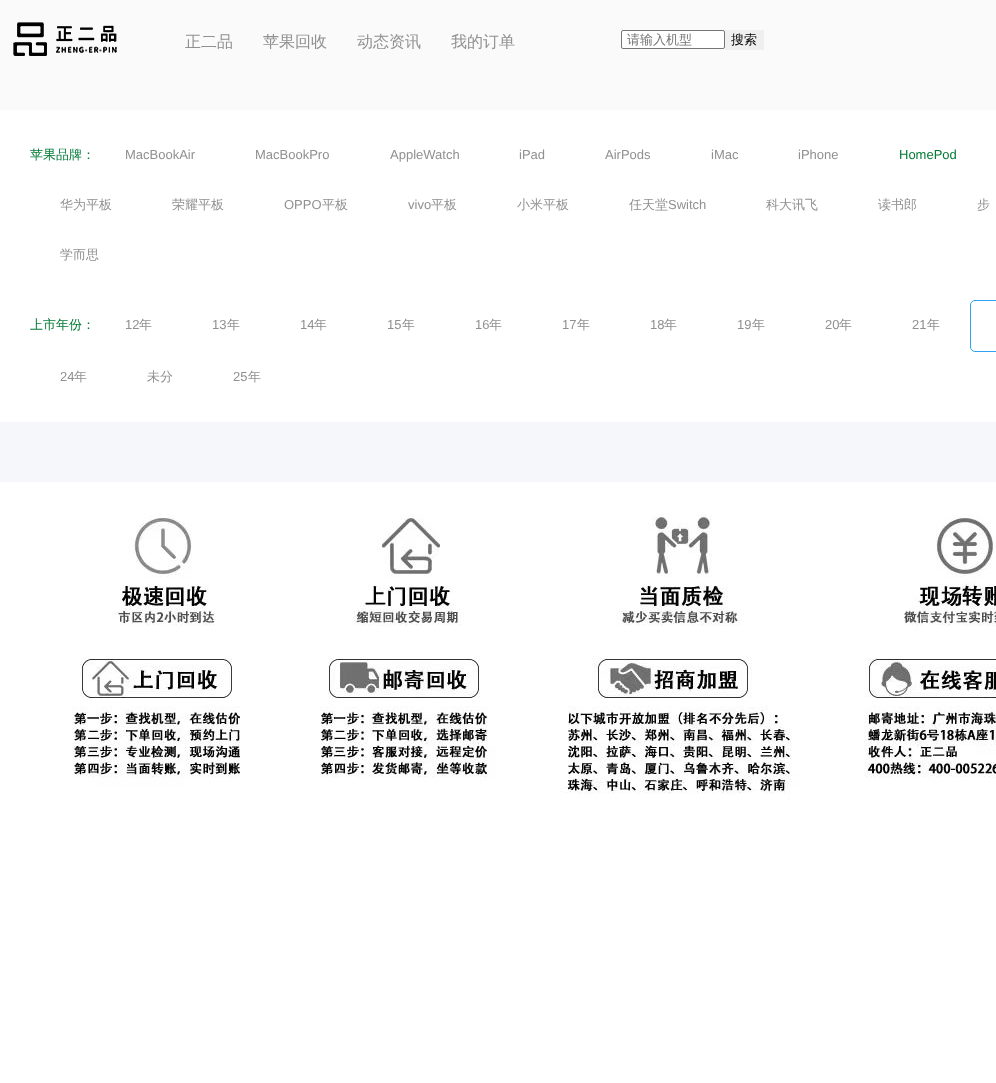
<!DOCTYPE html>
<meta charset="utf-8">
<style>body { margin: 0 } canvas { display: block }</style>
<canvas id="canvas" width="996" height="1083"></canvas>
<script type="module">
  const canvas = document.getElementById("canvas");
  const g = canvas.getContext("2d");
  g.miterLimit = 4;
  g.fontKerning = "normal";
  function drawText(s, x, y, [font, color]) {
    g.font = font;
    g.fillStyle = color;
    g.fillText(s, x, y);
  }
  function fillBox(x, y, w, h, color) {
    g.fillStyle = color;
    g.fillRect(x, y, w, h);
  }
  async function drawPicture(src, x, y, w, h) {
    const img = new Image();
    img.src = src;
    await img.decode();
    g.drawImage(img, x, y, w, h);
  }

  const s1 = ["500 16px WenQuanYi Zen Hei", "#909090"];
  const s2 = ["500 13px WenQuanYi Zen Hei", "#757575"];
  const s3 = ["500 13px WenQuanYi Zen Hei", "#000000"];
  const s4 = ["500 13px WenQuanYi Zen Hei", "#037B37"];
  const s5 = ["13px Liberation Sans", "#909090"];
  const s6 = ["13px Liberation Sans", "#037B37"];
  const s7 = ["500 13px WenQuanYi Zen Hei", "#909090"];

  fillBox(0, 0, 996, 1083, "#FFFFFF");
  fillBox(0, 422, 996, 60, "#F6F7FB");
  fillBox(0, 0, 996, 110, "#FAFAFA");
  await drawPicture("pic1.png", 13, 22, 104, 34);
  drawText("正二品", 185, 47, s1);
  drawText("苹果回收", 263, 47, s1);
  drawText("动态资讯", 357, 47, s1);
  drawText("我的订单", 451, 47, s1);
  g.fillStyle = "#FFFFFF";
  g.beginPath();
  g.roundRect(621.5, 30.5, 103, 18, 1.5);
  g.fill();
  g.strokeStyle = "#767676";
  g.stroke();
  drawText("请输入机型", 627, 44, s2);
  fillBox(725, 30, 39, 20, "#EFEFEF");
  drawText("搜索", 731, 44, s3);
  drawText("苹果品牌：", 30, 159, s4);
  drawText("MacBookAir", 125, 159, s5);
  drawText("MacBookPro", 255, 159, s5);
  drawText("AppleWatch", 390, 159, s5);
  drawText("iPad", 519, 159, s5);
  drawText("AirPods", 605, 159, s5);
  drawText("iMac", 711, 159, s5);
  drawText("iPhone", 798, 159, s5);
  drawText("HomePod", 899, 159, s6);
  drawText("华为平板", 60, 209, s7);
  drawText("荣耀平板", 172, 209, s7);
  drawText("OPPO", 284, 209, s5);
  drawText("平板", 322, 209, s7);
  drawText("vivo", 408, 209, s5);
  drawText("平板", 431, 209, s7);
  drawText("小米平板", 517, 209, s7);
  drawText("任天堂", 629, 209, s7);
  drawText("Switch", 668, 209, s5);
  drawText("科大讯飞", 766, 209, s7);
  drawText("读书郎", 878, 209, s7);
  drawText("步", 977, 209, s7);
  drawText("学而思", 60, 259, s7);
  drawText("上市年份：", 30, 329, s4);
  drawText("12", 125, 329, s5);
  drawText("年", 139, 329, s7);
  drawText("13", 212, 329, s5);
  drawText("年", 227, 329, s7);
  drawText("14", 300, 329, s5);
  drawText("年", 314, 329, s7);
  drawText("15", 387, 329, s5);
  drawText("年", 402, 329, s7);
  drawText("16", 475, 329, s5);
  drawText("年", 489, 329, s7);
  drawText("17", 562, 329, s5);
  drawText("年", 577, 329, s7);
  drawText("18", 650, 329, s5);
  drawText("年", 664, 329, s7);
  drawText("19", 737, 329, s5);
  drawText("年", 752, 329, s7);
  drawText("20", 825, 329, s5);
  drawText("年", 839, 329, s7);
  drawText("21", 912, 329, s5);
  drawText("年", 927, 329, s7);
  g.beginPath();
  g.roundRect(970.5, 300.5, 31, 51, 4.5);
  g.strokeStyle = "#2DA2F1";
  g.stroke();
  drawText("24", 60, 381, s5);
  drawText("年", 74, 381, s7);
  drawText("未分", 147, 381, s7);
  drawText("25", 233, 381, s5);
  drawText("年", 248, 381, s7);
  await drawPicture("pic2.png", 0, 482, 996, 341);
</script>
